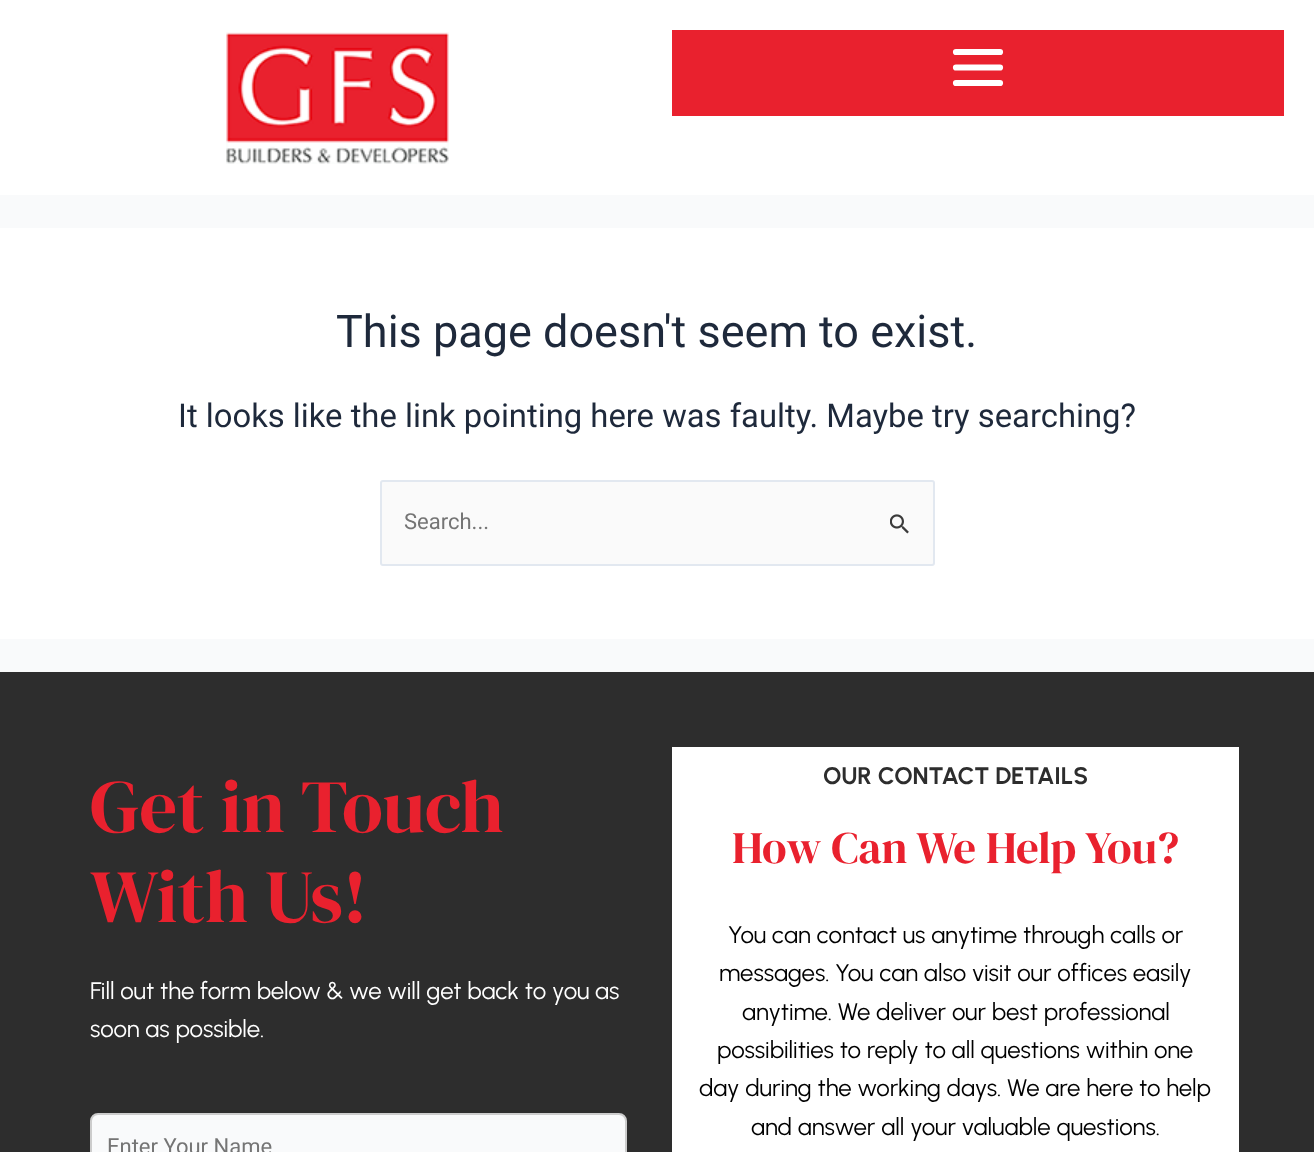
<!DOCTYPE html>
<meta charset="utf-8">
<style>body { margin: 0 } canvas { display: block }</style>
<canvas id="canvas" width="1314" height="1152"></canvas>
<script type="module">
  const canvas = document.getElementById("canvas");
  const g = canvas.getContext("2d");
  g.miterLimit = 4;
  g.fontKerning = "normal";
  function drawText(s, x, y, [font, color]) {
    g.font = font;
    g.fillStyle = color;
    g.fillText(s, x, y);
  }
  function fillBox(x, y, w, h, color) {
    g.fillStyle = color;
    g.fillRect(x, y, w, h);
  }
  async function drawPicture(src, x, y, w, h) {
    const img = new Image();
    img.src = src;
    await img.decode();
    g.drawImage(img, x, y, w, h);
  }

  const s1 = ["45px Roboto", "#1E293B"];
  const s2 = ["32.8px Roboto", "#1E293B"];
  const s3 = ["22px Roboto", "#757575"];
  const s4 = ["75px DM Serif Display", "#E9212E"];
  const s5 = ["24px Urbanist", "#FFFFFF"];
  const s6 = ["bold 24px Urbanist", "#2D2D2D"];
  const s7 = ["45px DM Serif Display", "#E9212E"];
  const s8 = ["24px Urbanist", "#000000"];

  fillBox(0, 0, 1314, 1152, "#F9FAFB");
  fillBox(0, 0, 1314, 195, "#FFFFFF");
  await drawPicture("pic1.png", 226, 32, 223, 132);
  fillBox(672, 30, 612, 86, "#E9212E");
  g.beginPath();
  g.moveTo(956, 52);
  g.lineTo(1000, 52);
  g.moveTo(956, 83);
  g.lineTo(1000, 83);
  g.moveTo(956, 67.5);
  g.lineTo(1000, 67.5);
  g.strokeStyle = "#FFFFFF";
  g.lineWidth = 6.2;
  g.lineCap = "round";
  g.stroke();
  fillBox(0, 228, 1314, 411, "#FFFFFF");
  drawText("This page doesn't seem to exist.", 336, 347, s1);
  drawText("It looks like the link pointing here was faulty. Maybe try searching?", 178, 427, s2);
  g.fillStyle = "#FAFAFA";
  g.beginPath();
  g.roundRect(381, 481, 553, 84, 2);
  g.fill();
  g.strokeStyle = "#E2E8F0";
  g.lineWidth = 2;
  g.stroke();
  drawText("Search...", 404, 529, s3);
  await drawPicture("pic2.png", 890, 514, 19, 20);
  fillBox(0, 672, 1314, 480, "#2D2D2D");
  drawText("Get in Touch", 90, 832, s4);
  drawText("With Us!", 90, 922, s4);
  drawText("Fill out the form below & we will get back to you as", 90, 999, s5);
  drawText("soon as possible.", 90, 1037, s5);
  g.fillStyle = "#F9FAFB";
  g.beginPath();
  g.roundRect(91, 1114, 535, 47, 7);
  g.fill();
  g.strokeStyle = "#CCCCCC";
  g.stroke();
  drawText("Enter Your Name", 107, 1154, s3);
  fillBox(672, 747, 567, 405, "#FFFFFF");
  drawText("OUR CONTACT DETAILS", 823, 784, s6);
  drawText("How Can We Help You?", 732, 863, s7);
  drawText("You can contact us anytime through calls or", 728, 943, s8);
  drawText("messages. You can also visit our offices easily", 719, 981, s8);
  drawText("anytime. We deliver our best professional", 742, 1020, s8);
  drawText("possibilities to reply to all questions within one", 717, 1058, s8);
  drawText("day during the working days. We are here to help", 699, 1096, s8);
  drawText("and answer all your valuable questions.", 751, 1135, s8);
</script>
